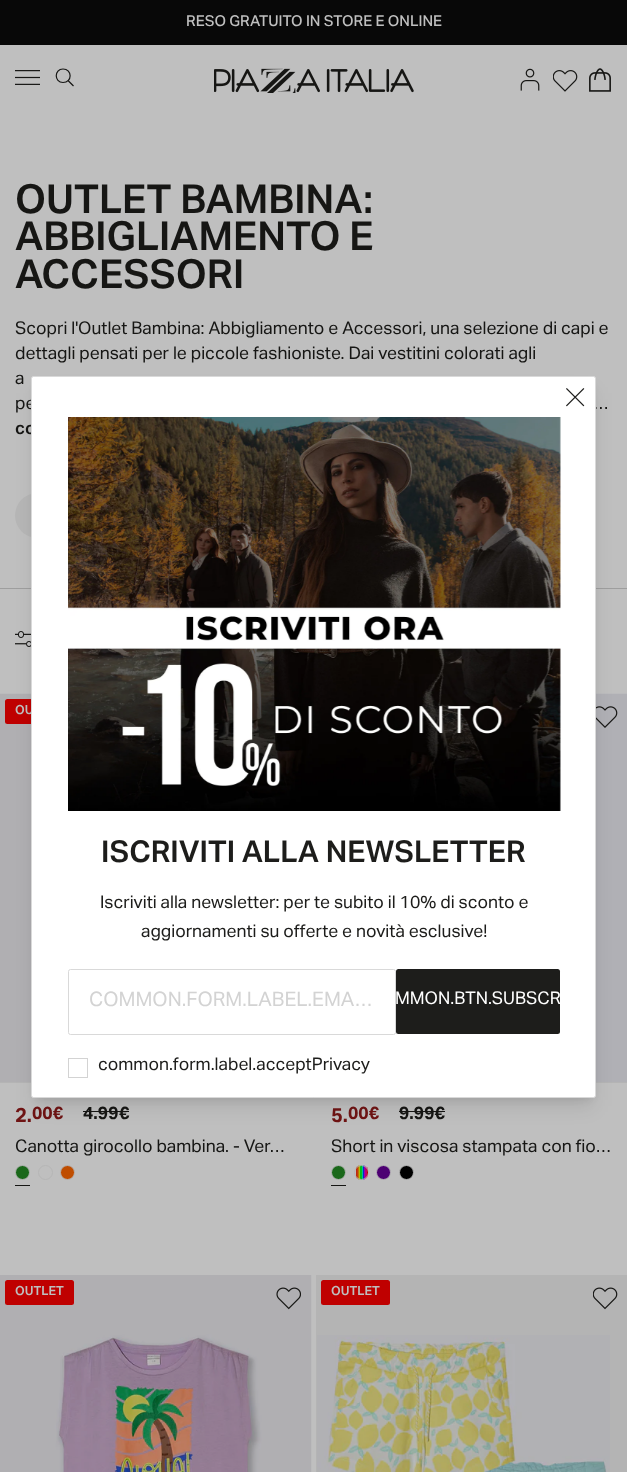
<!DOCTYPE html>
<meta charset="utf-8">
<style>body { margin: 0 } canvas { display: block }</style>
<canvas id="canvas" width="627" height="1472"></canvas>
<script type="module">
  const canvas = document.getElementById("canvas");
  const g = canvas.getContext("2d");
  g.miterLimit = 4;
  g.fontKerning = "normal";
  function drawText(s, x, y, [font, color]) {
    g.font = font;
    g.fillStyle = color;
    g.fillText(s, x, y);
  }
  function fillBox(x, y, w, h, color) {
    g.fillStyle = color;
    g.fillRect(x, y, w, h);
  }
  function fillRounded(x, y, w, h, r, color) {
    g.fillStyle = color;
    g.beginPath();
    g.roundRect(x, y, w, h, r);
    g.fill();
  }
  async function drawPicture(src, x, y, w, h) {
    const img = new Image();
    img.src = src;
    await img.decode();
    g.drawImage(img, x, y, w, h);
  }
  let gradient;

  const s1 = ["500 15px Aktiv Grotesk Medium", "#BFBFBF"];
  const s2 = ["600 40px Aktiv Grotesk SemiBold", "#161614"];
  const s3 = ["17.5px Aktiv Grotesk", "#161614"];
  const s4 = ["600 17.5px Aktiv Grotesk SemiBold", "#161614"];
  const s5 = ["600 12.5px Aktiv Grotesk SemiBold", "#BFBFBF"];
  const s6 = ["bold 20px Aktiv Grotesk", "#6F1414"];
  const s7 = ["bold 17.5px Aktiv Grotesk", "#6F1414"];
  const s8 = ["bold 17.5px Aktiv Grotesk", "#161614"];
  const s9 = ["600 30px Aktiv Grotesk SemiBold", "#1D1D1B"];
  const s10 = ["17.5px Aktiv Grotesk", "#1D1D1B"];
  const s11 = ["20px Aktiv Grotesk", "#D3D3D3"];
  const s12 = ["17.5px Aktiv Grotesk", "#FFFFFF"];

  fillBox(0, 0, 627, 1472, "#BFBFBF");
  fillBox(0, 0, 627, 45, "#080808");
  drawText("RESO GRATUITO IN STORE E ONLINE", 186, 26, s1);
  await drawPicture("pic1.png", 15, 70, 25, 15);
  g.beginPath();
  g.moveTo(68, 80.5);
  g.lineTo(73.5, 86);
  g.moveTo(63, 82.5);
  g.bezierCurveTo(72.5, 82.5, 72.5, 69, 63, 69);
  g.bezierCurveTo(54, 69, 54, 82.5, 63, 82.5);
  g.closePath();
  g.strokeStyle = "#161614";
  g.lineWidth = 1.2;
  g.stroke();
  await drawPicture("pic2.png", 214, 68, 200, 25);
  await drawPicture("pic3.png", 520, 68, 20, 23);
  await drawPicture("pic4.png", 553, 70, 25, 22);
  await drawPicture("pic5.png", 589, 68, 22, 24);
  fillBox(0, 588, 627, 1, "#9E9E9E");
  drawText("OUTLET BAMBINA:", 15, 213, s2);
  drawText("ABBIGLIAMENTO E", 15, 250, s2);
  drawText("ACCESSORI", 15, 288, s2);
  drawText("Scopri l'Outlet Bambina: Abbigliamento e Accessori, una selezione di capi e", 15, 334, s3);
  drawText("dettagli pensati per le piccole fashioniste. Dai vestitini colorati agli", 15, 359, s3);
  drawText("a", 15, 384, s3);
  drawText("pe", 15, 409, s3);
  drawText("…", 593, 409, s3);
  drawText("co", 15, 434, s4);
  fillRounded(15, 493, 306, 45, 22.5, "#B6B6B6");
  await drawPicture("pic6.png", 15, 631, 16, 16);
  fillBox(0, 1082, 31, 1, "#B4B4B4");
  await drawPicture("pic7.png", 0, 693, 31, 389);
  fillRounded(5, 699, 69, 25, 2.5, "#BF0000");
  drawText("OU", 15, 714, s5);
  drawText("2.", 15, 1122, s6);
  drawText("00€", 32, 1119, s7);
  drawText("4.99", 83, 1119, s8);
  fillBox(83, 1111, 36, 1, "#161614");
  drawText("€", 119, 1119, s8);
  fillBox(119, 1111, 10, 1, "#161614");
  drawText("Canotta girocollo bambina. - Ver…", 15, 1152, s3);
  g.fillStyle = "#1A681A";
  g.beginPath();
  g.arc(22.5, 1172.5, 7, 0, Math.PI * 2);
  g.fill();
  g.strokeStyle = "#B6B6B6";
  g.lineWidth = 1;
  g.stroke();
  fillBox(15, 1185, 15, 1, "#161614");
  g.beginPath();
  g.arc(45.5, 1172.5, 7, 0, Math.PI * 2);
  g.stroke();
  g.fillStyle = "#BF4D00";
  g.beginPath();
  g.arc(67.5, 1172.5, 7, 0, Math.PI * 2);
  g.fill();
  g.stroke();
  await drawPicture("pic9.png", 596, 693, 31, 389);
  await drawPicture("pic8.png", 596, 706, 22, 22);
  fillBox(596, 1082, 31, 1, "#B4B4B4");
  drawText("5.", 331, 1122, s6);
  drawText("00€", 348, 1119, s7);
  drawText("9.99€", 399, 1119, s8);
  fillBox(399, 1111, 46, 1, "#161614");
  drawText("Short in viscosa stampata con fio…", 331, 1152, s3);
  g.fillStyle = "#1A681A";
  g.beginPath();
  g.arc(338.5, 1172.5, 7, 0, Math.PI * 2);
  g.fill();
  g.stroke();
  fillBox(331, 1185, 15, 1, "#161614");
  g.save();
  g.beginPath();
  g.roundRect(354, 1165, 15, 15, 7.5);
  g.clip();
  gradient = g.createLinearGradient(355, 1173, 368, 1173);
  gradient.addColorStop(0, "#BFBFBF");
  gradient.addColorStop(0.08, "#BFBFBF");
  gradient.addColorStop(0.08, "#BE2016");
  gradient.addColorStop(0.2, "#BF3E0D");
  gradient.addColorStop(0.2, "#BF6600");
  gradient.addColorStop(0.3, "#BE7800");
  gradient.addColorStop(0.3, "#B8BF00");
  gradient.addColorStop(0.4, "#93BF04");
  gradient.addColorStop(0.4, "#00BF13");
  gradient.addColorStop(0.5, "#00BF21");
  gradient.addColorStop(0.5, "#00BFA1");
  gradient.addColorStop(0.6, "#00B1A4");
  gradient.addColorStop(0.6, "#002EBF");
  gradient.addColorStop(0.7, "#0E29BF");
  gradient.addColorStop(0.7, "#8D00BF");
  gradient.addColorStop(0.8, "#9200B7");
  gradient.addColorStop(0.8, "#BF006E");
  gradient.addColorStop(0.9, "#BF0063");
  gradient.addColorStop(0.9, "#BF0007");
  gradient.addColorStop(1, "#B50000");
  g.fillStyle = gradient;
  g.fillRect(355, 1165, 13, 15);
  g.restore();
  g.beginPath();
  g.arc(361.5, 1172.5, 7, 0, Math.PI * 2);
  g.stroke();
  g.fillStyle = "#4D0073";
  g.beginPath();
  g.arc(383.5, 1172.5, 7, 0, Math.PI * 2);
  g.fill();
  g.stroke();
  g.fillStyle = "#000000";
  g.beginPath();
  g.arc(406.5, 1172.5, 7, 0, Math.PI * 2);
  g.fill();
  g.stroke();
  await drawPicture("pic10.png", 0, 1275, 312, 197);
  fillRounded(5, 1280, 69, 25, 2.5, "#BF0000");
  drawText("OUTLET", 15, 1295, s5);
  await drawPicture("pic11.png", 276, 1287, 25, 23);
  fillBox(316, 1275, 311, 197, "#B4B4B4");
  fillRounded(321, 1280, 69, 25, 2.5, "#BF0000");
  drawText("OUTLET", 331, 1295, s5);
  await drawPicture("pic12.png", 317, 1335, 293, 137);
  await drawPicture("pic13.png", 593, 1287, 25, 23);
  g.fillStyle = "rgba(0, 0, 0, 0.1)";
  g.filter = "blur(4px)";
  g.beginPath();
  g.rect(36, 386, 555, 712);
  g.fill();
  g.filter = "none";
  g.filter = "blur(9.5px)";
  g.beginPath();
  g.rect(35, 393, 558, 713);
  g.fill();
  g.filter = "none";
  g.fillStyle = "#FFFFFF";
  g.beginPath();
  g.roundRect(31.5, 376.5, 564, 721, 2);
  g.fill();
  g.strokeStyle = "#D9D9D9";
  g.stroke();
  await drawPicture("pic14.png", 566, 388, 19, 19);
  await drawPicture("pic15.png", 68, 417, 493, 394);
  drawText("ISCRIVITI ALLA NEWSLETTER", 101, 862, s9);
  drawText("Iscriviti alla newsletter: per te subito il 10% di sconto e", 100, 908, s10);
  drawText("aggiornamenti su offerte e novità esclusive!", 141, 937, s10);
  g.beginPath();
  g.roundRect(68.5, 969.5, 327, 65, 2);
  g.stroke();
  drawText("COMMON.FORM.LABEL.EMA…", 89, 1006, s11);
  fillRounded(396, 969, 164, 65, 2.5, "#1D1D1B");
  drawText("MMON.BTN.SUBSCR", 395, 1004, s12);
  g.strokeStyle = "#D3D3D3";
  g.strokeRect(68.5, 1058.5, 19, 19);
  drawText("common.form.label.acceptPrivacy", 98, 1070, s10);
</script>
